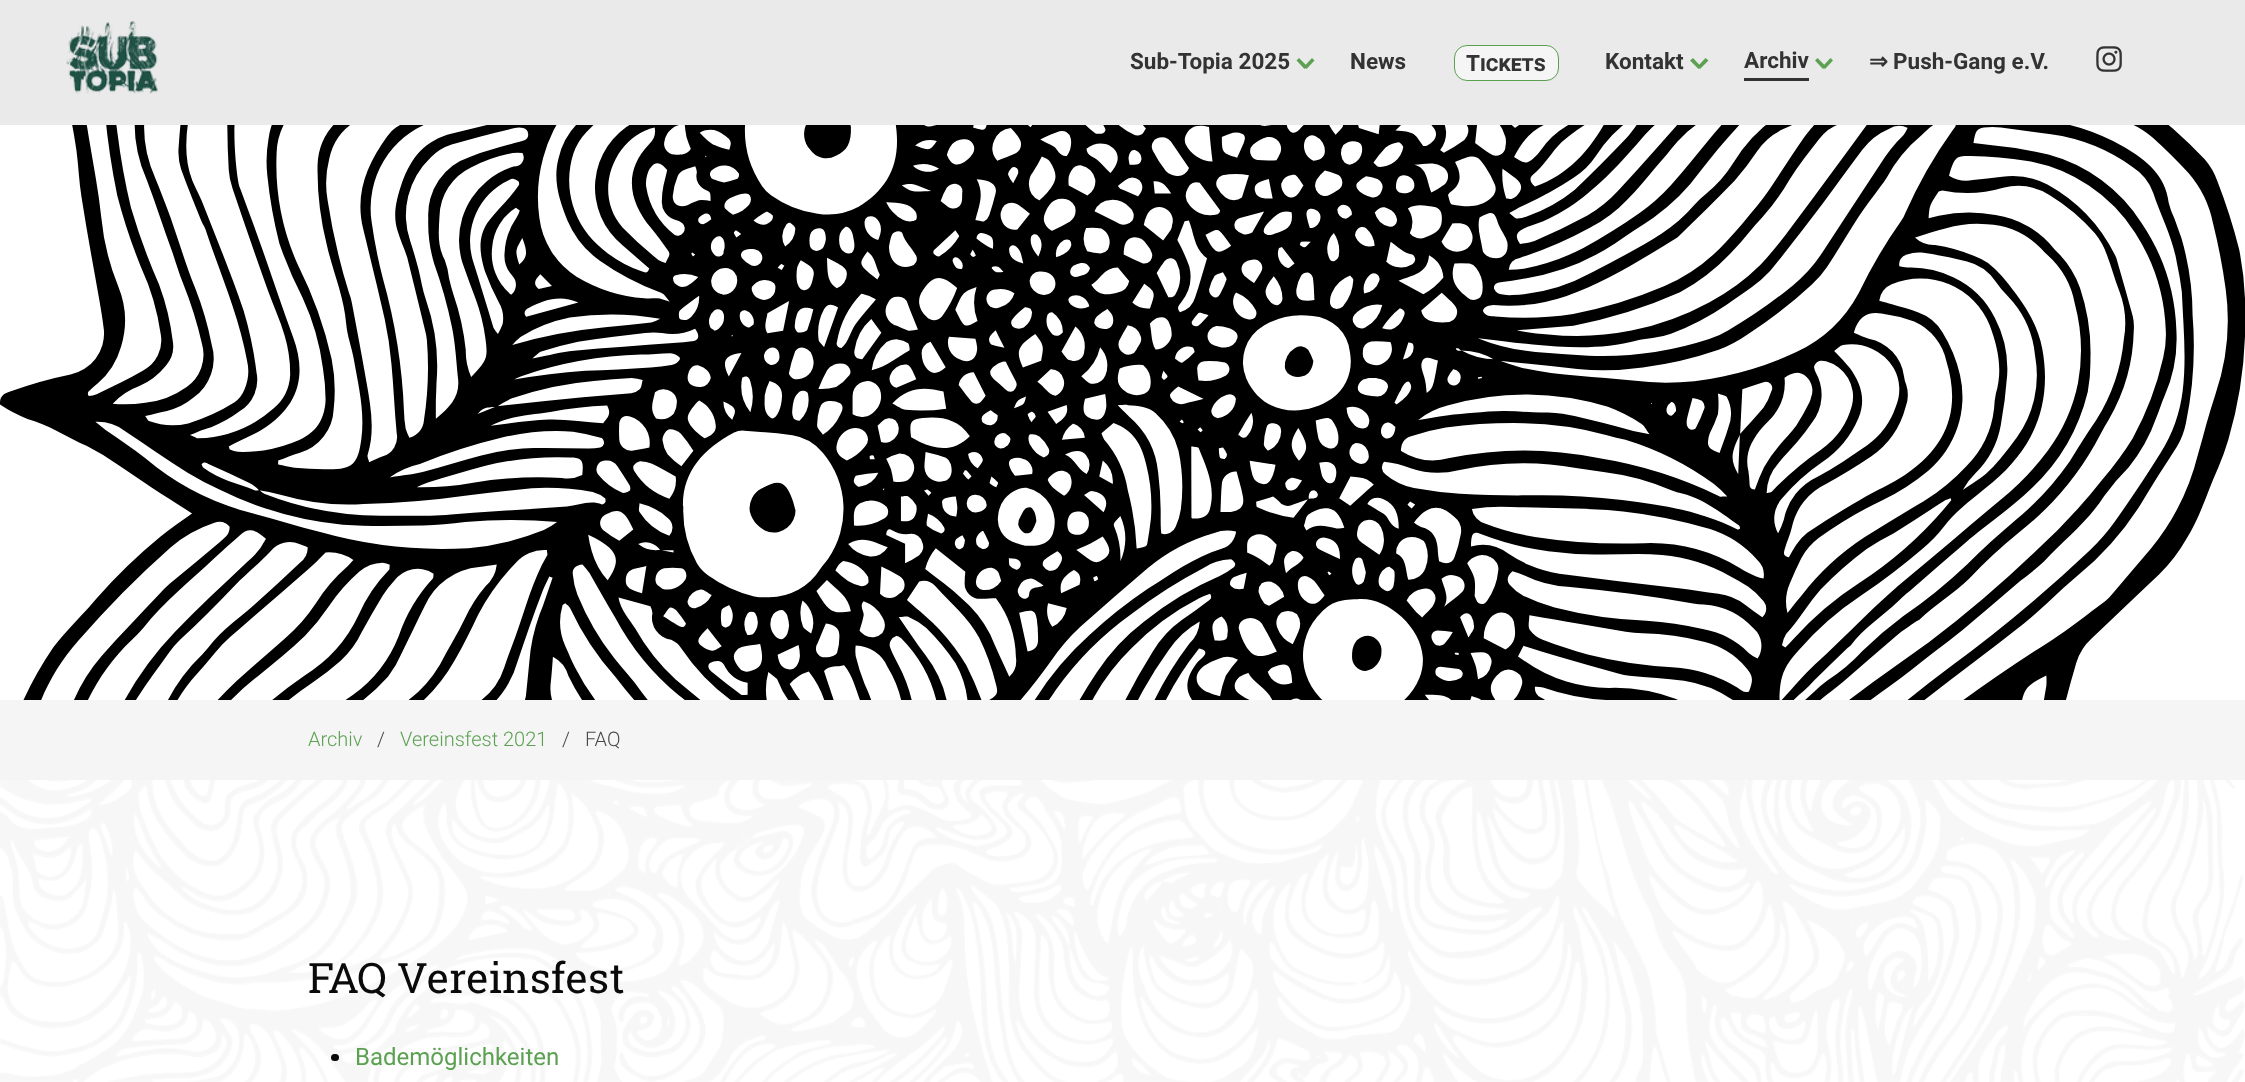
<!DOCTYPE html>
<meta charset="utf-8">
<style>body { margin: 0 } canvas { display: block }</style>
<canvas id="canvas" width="2245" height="1082"></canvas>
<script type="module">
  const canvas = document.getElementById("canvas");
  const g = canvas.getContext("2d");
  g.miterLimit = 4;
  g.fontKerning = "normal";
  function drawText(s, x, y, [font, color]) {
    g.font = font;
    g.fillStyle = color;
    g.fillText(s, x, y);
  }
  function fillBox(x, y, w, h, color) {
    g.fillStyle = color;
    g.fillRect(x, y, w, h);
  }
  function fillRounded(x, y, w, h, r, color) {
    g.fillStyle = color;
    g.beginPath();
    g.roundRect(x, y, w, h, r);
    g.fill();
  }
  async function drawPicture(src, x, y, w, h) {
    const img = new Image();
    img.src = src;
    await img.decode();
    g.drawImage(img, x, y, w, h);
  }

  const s1 = ["bold 22.5px Roboto", "#333333"];
  const s2 = ["bold 22.5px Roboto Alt", "#333333"];
  const s3 = ["bold 22.5px DejaVu Sans", "#333333"];
  const s4 = ["300 20px Roboto", "#5CA152"];
  const s5 = ["300 20px Roboto", "#4A4A4A"];
  const s6 = ["42px Roboto Slab", "#0A0A0A"];
  const s7 = ["24px Roboto", "#5CA152"];

  fillBox(0, 0, 2245, 1082, "#FFFFFF");
  fillBox(0, 0, 2245, 125, "#EAEAEA");
  await drawPicture("pic1.png", 66, 21, 92, 73);
  drawText("Sub-Topia 2025", 1130, 69, s1);
  g.fillStyle = "#5CA152";
  g.beginPath();
  g.moveTo(1304, 66.5);
  g.lineTo(1312, 58);
  g.lineTo(1314.5, 60.5);
  g.lineTo(1306.5, 69);
  g.closePath();
  g.fill();
  g.beginPath();
  g.moveTo(1296.5, 60.5);
  g.lineTo(1299, 58);
  g.lineTo(1307.5, 66.5);
  g.lineTo(1304.5, 69);
  g.closePath();
  g.fill();
  drawText("News", 1350, 69, s1);
  g.fillStyle = "#F5F5F5";
  g.beginPath();
  g.roundRect(1454.5, 45.5, 104, 35, 12.5);
  g.fill();
  g.strokeStyle = "#5CA152";
  g.stroke();
  drawText("Tickets", 1466, 71, s2);
  drawText("Kontakt", 1605, 69, s1);
  g.fillStyle = "#5CA152";
  g.beginPath();
  g.moveTo(1697.5, 66.5);
  g.lineTo(1705.5, 58);
  g.lineTo(1708.5, 60.5);
  g.lineTo(1700, 69);
  g.closePath();
  g.fill();
  g.beginPath();
  g.moveTo(1690, 60.5);
  g.lineTo(1693, 58);
  g.lineTo(1701, 66.5);
  g.lineTo(1698.5, 69);
  g.closePath();
  g.fill();
  fillBox(1744, 78, 65, 3, "#333333");
  drawText("Archiv", 1744, 68, s1);
  g.fillStyle = "#5CA152";
  g.beginPath();
  g.moveTo(1822.5, 66.5);
  g.lineTo(1830.5, 58);
  g.lineTo(1833, 60.5);
  g.lineTo(1825, 69);
  g.closePath();
  g.fill();
  g.beginPath();
  g.moveTo(1815, 60.5);
  g.lineTo(1817.5, 58);
  g.lineTo(1826, 66.5);
  g.lineTo(1823, 69);
  g.closePath();
  g.fill();
  drawText("⇒", 1869, 69, s3);
  drawText("Push-Gang e.V.", 1893, 69, s1);
  await drawPicture("pic2.png", 2096, 46, 26, 26);
  await drawPicture("pic3.png", 0, 125, 2245, 575);
  fillBox(0, 700, 2245, 80, "#F5F5F5");
  drawText("Archiv", 308, 746, s4);
  drawText("/", 377, 746, s5);
  drawText("Vereinsfest 2021", 400, 746, s4);
  drawText("/", 562, 746, s5);
  drawText("FAQ", 585, 746, s5);
  await drawPicture("pic4.png", 0, 780, 2245, 302);
  drawText("FAQ Vereinsfest", 308, 993, s6);
  fillRounded(331, 1054, 8, 7, 3.5, "#0A0A0A");
  drawText("Bademöglichkeiten", 355, 1065, s7);
</script>
